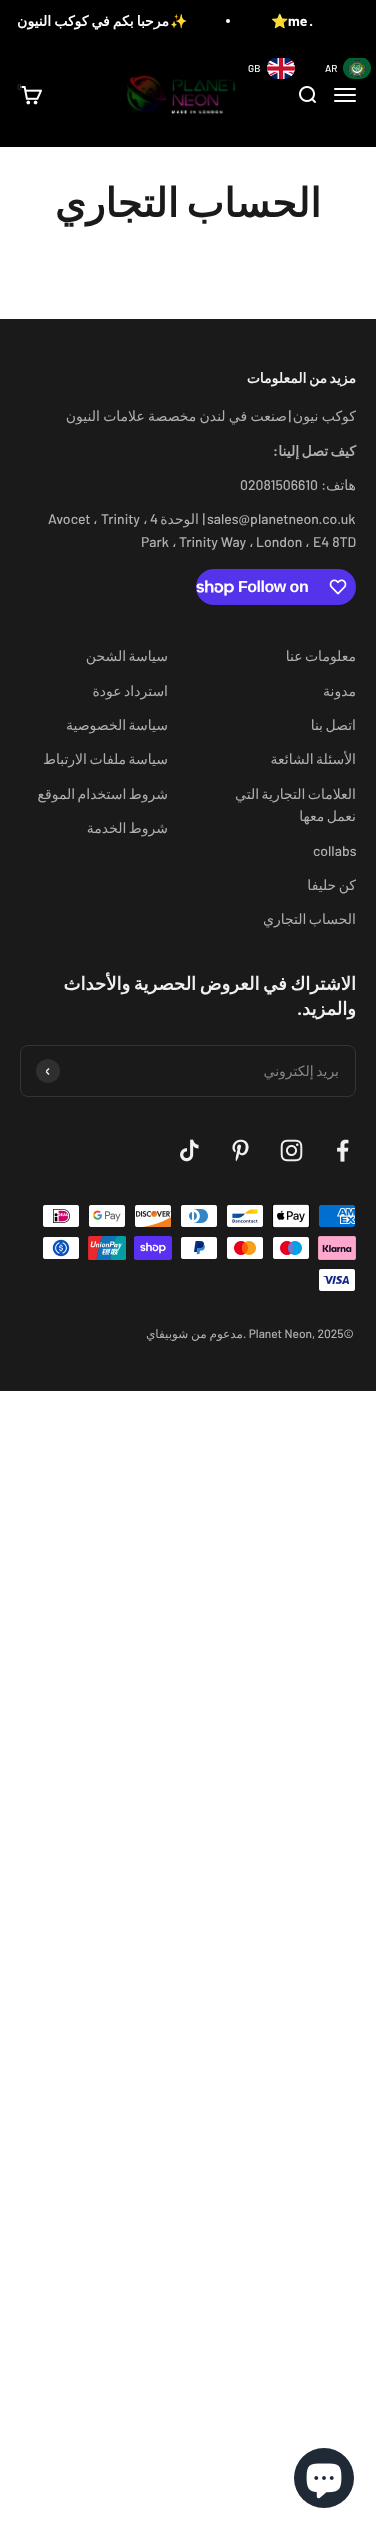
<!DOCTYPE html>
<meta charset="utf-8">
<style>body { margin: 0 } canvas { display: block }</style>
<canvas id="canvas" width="376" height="2529"></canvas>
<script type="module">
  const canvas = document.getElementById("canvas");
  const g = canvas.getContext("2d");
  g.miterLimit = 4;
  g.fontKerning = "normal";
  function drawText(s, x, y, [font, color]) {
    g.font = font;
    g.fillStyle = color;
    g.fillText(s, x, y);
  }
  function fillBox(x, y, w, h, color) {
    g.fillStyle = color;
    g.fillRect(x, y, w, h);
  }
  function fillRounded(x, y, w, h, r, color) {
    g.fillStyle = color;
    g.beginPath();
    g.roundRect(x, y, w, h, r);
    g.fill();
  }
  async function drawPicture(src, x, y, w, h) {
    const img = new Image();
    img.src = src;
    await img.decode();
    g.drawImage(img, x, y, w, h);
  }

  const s1 = ["bold 14px Barlow", "#FFFFFF"];
  const s2 = ["bold 14px Noto Color Emoji", "#FFFFFF"];
  const s3 = ["bold 14px DejaVu Sans", "#FFFFFF"];
  const s4 = ["500 10px Barlow", "#FFFFFF"];
  const s5 = ["bold 9px Barlow", "#252525"];
  const s6 = ["bold 40px DejaVu Sans", "#1A1A1A"];
  const s7 = ["bold 14px DejaVu Sans", "#F0F0F0"];
  const s8 = ["14px DejaVu Sans", "#B0B0B0"];
  const s9 = ["500 14px Barlow", "#B9B9B9"];
  const s10 = ["bold 14px DejaVu Sans", "#B0B0B0"];
  const s11 = ["bold 14px Barlow", "#B0B0B0"];
  const s12 = ["500 14px Barlow", "#B0B0B0"];
  const s13 = ["bold 16px Liberation Sans", "#FFFFFF"];
  const s14 = ["bold 18px DejaVu Sans", "#F0F0F0"];
  const s15 = ["bold 18px Barlow", "#F0F0F0"];
  const s16 = ["14px DejaVu Sans", "#858585"];
  const s17 = ["500 12px Barlow", "#B0B0B0"];
  const s18 = ["12px DejaVu Sans", "#B0B0B0"];

  fillBox(0, 0, 376, 2529, "#FFFFFF");
  fillBox(0, 0, 376, 147, "#000000");
  g.direction = "rtl";
  drawText(".", 313, 26, s1);
  g.direction = "ltr";
  drawText("me", 288, 26, s1);
  drawText("⭐", 271, 26, s2);
  g.beginPath();
  g.arc(228, 21, 2, 0, Math.PI * 2);
  g.fill();
  g.wordSpacing = "-1.5px";
  g.direction = "rtl";
  drawText("مرحبا بكم في كوكب النيون", 169, 26, s3);
  g.wordSpacing = "0px";
  drawText("✨", 188, 26, s2);
  await drawPicture("pic5.png", 126, 75, 113, 40);
  fillRounded(225, 52, 151, 32, 16, "#000000");
  await drawPicture("pic1.png", 343, 58, 28, 21);
  g.direction = "ltr";
  drawText("AR", 325, 72, s4);
  await drawPicture("pic2.png", 267, 58, 28, 21);
  drawText("GB", 248, 72, s4);
  await drawPicture("pic3.png", 334, 88, 22, 14);
  await drawPicture("pic4.png", 299, 86, 17, 17);
  await drawPicture("pic6.png", 20, 86, 22, 19);
  drawText("0", 17, 90, s5);
  g.wordSpacing = "-5px";
  g.direction = "rtl";
  drawText("الحساب التجاري", 321, 217, s6);
  fillBox(0, 319, 376, 1072, "#1A1A1A");
  g.wordSpacing = "-2px";
  drawText("مزيد من المعلومات", 356, 383, s7);
  g.wordSpacing = "-1.25px";
  drawText("صنعت في لندن مخصصة علامات النيون", 287, 421, s8);
  drawText("كوكب نيون", 356, 421, s8);
  g.wordSpacing = "0px";
  drawText("|", 291, 421, s9);
  g.wordSpacing = "-2px";
  drawText("كيف تصل إلينا", 356, 456, s10);
  g.wordSpacing = "0px";
  drawText(":", 278, 456, s11);
  drawText("هاتف", 356, 490, s8);
  drawText(":", 326, 490, s12);
  g.direction = "ltr";
  drawText("02081506610", 240, 490, s12);
  drawText("sales@planetneon.co.uk", 207, 524, s12);
  g.direction = "rtl";
  drawText("|", 205, 524, s12);
  drawText("الوحدة", 199, 524, s8);
  g.direction = "ltr";
  drawText("4", 150, 524, s12);
  drawText("،", 143, 524, s8);
  drawText("Trinity", 101, 524, s12);
  drawText("،", 93, 524, s8);
  drawText("Avocet", 48, 524, s12);
  drawText("E4 8TD", 313, 547, s12);
  drawText("،", 305, 547, s8);
  drawText("London", 256, 547, s12);
  drawText("،", 249, 547, s8);
  drawText("Trinity Way", 179, 547, s12);
  drawText("،", 172, 547, s8);
  drawText("Park", 141, 547, s12);
  fillRounded(196, 569, 160, 36, 18, "#5433EB");
  await drawPicture("pic7.png", 329, 579, 18, 16);
  g.letterSpacing = "-0.5px";
  drawText("Follow on", 238, 592, s13);
  await drawPicture("pic8.png", 196, 580, 38, 16);
  g.letterSpacing = "0px";
  g.wordSpacing = "-2px";
  g.direction = "rtl";
  drawText("معلومات عنا", 356, 661, s8);
  g.wordSpacing = "0px";
  drawText("مدونة", 356, 696, s8);
  g.wordSpacing = "-2px";
  drawText("اتصل بنا", 356, 730, s8);
  drawText("الأسئلة الشائعة", 356, 764, s8);
  drawText("العلامات التجارية التي", 356, 799, s8);
  drawText("نعمل معها", 356, 821, s8);
  g.wordSpacing = "0px";
  g.direction = "ltr";
  drawText("collabs", 313, 856, s12);
  g.wordSpacing = "-2px";
  g.direction = "rtl";
  drawText("كن حليفا", 356, 890, s8);
  drawText("الحساب التجاري", 356, 924, s8);
  drawText("سياسة الشحن", 168, 661, s8);
  drawText("استرداد عودة", 168, 696, s8);
  drawText("سياسة الخصوصية", 168, 730, s8);
  drawText("سياسة ملفات الارتباط", 168, 764, s8);
  drawText("شروط استخدام الموقع", 168, 799, s8);
  drawText("شروط الخدمة", 168, 833, s8);
  drawText("الاشتراك في العروض الحصرية والأحداث", 356, 990, s14);
  g.wordSpacing = "0px";
  drawText("والمزيد", 356, 1015, s14);
  drawText(".", 302, 1015, s15);
  g.beginPath();
  g.roundRect(20.5, 1045.5, 335, 51, 7.5);
  g.strokeStyle = "#343434";
  g.stroke();
  g.wordSpacing = "-2px";
  drawText("بريد إلكتروني", 339, 1076, s16);
  g.fillStyle = "#2F2F2F";
  g.beginPath();
  g.arc(48, 1071, 12, 0, Math.PI * 2);
  g.fill();
  g.save();
  g.beginPath();
  g.rect(46, 1067, 5, 8);
  g.clip();
  g.beginPath();
  g.moveTo(49, 1068.5);
  g.lineTo(46, 1071.5);
  g.lineTo(49, 1074.5);
  g.strokeStyle = "#F0F0F0";
  g.lineWidth = 1.5;
  g.stroke();
  g.restore();
  await drawPicture("pic9.png", 337, 1139, 12, 23);
  await drawPicture("pic10.png", 280, 1139, 23, 23);
  await drawPicture("pic11.png", 232, 1139, 17, 23);
  await drawPicture("pic12.png", 180, 1139, 19, 23);
  await drawPicture("pic13.png", 319, 1205, 36, 22);
  await drawPicture("pic14.png", 272, 1204, 38, 24);
  await drawPicture("pic15.png", 227, 1205, 36, 22);
  await drawPicture("pic16.png", 181, 1205, 36, 22);
  await drawPicture("pic17.png", 135, 1205, 36, 22);
  await drawPicture("pic18.png", 89, 1205, 36, 22);
  await drawPicture("pic19.png", 43, 1205, 36, 22);
  await drawPicture("pic20.png", 318, 1236, 38, 24);
  await drawPicture("pic21.png", 273, 1237, 36, 22);
  await drawPicture("pic22.png", 227, 1237, 36, 22);
  await drawPicture("pic23.png", 181, 1237, 36, 22);
  await drawPicture("pic24.png", 134, 1236, 38, 24);
  await drawPicture("pic25.png", 88, 1236, 38, 24);
  await drawPicture("pic26.png", 43, 1237, 36, 22);
  await drawPicture("pic27.png", 319, 1269, 36, 22);
  g.wordSpacing = "0px";
  g.direction = "ltr";
  drawText(". Planet Neon, 2025©", 243, 1338, s17);
  g.wordSpacing = "-1px";
  g.direction = "rtl";
  drawText("مدعوم من شوبيفاي", 243, 1338, s18);
  g.fillStyle = "#202A36";
  g.beginPath();
  g.arc(324, 2478, 30, 0, Math.PI * 2);
  g.fill();
  await drawPicture("pic28.png", 306, 2463, 36, 36);
</script>
